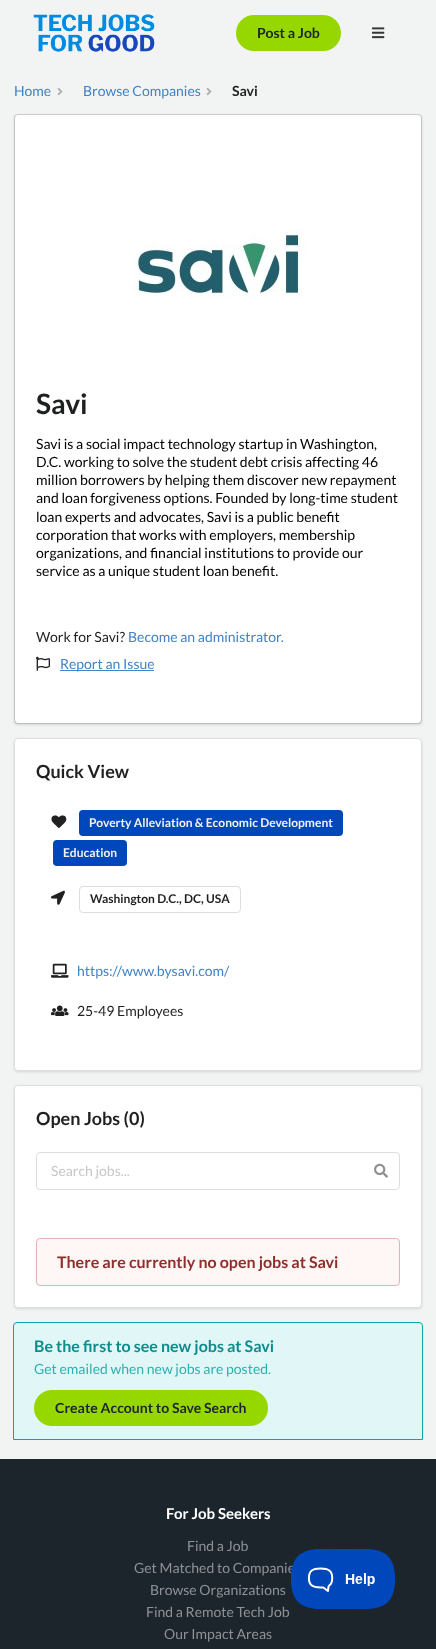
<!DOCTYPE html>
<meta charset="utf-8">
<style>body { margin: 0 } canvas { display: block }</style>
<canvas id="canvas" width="436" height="1649"></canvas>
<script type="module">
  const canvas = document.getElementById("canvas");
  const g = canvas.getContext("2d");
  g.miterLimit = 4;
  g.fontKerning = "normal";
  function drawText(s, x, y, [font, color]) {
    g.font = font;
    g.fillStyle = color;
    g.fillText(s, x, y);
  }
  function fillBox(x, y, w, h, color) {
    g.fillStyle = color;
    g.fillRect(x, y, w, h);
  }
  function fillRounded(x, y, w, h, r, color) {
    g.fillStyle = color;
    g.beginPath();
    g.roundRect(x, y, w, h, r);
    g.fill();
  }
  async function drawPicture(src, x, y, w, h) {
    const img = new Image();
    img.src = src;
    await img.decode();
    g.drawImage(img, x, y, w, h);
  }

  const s1 = ["bold 14px Lato", "#1D252C"];
  const s2 = ["14px Lato", "#4183C4"];
  const s3 = ["bold 14px Lato", "#1F2020"];
  const s4 = ["bold 28px Lato", "#1F2020"];
  const s5 = ["14px Lato", "#000000"];
  const s6 = ["14px Lato", "#1F2020"];
  const s7 = ["bold 18px Lato", "#1F2020"];
  const s8 = ["bold 12px Lato", "#F1F1F1"];
  const s9 = ["bold 12px Lato", "#1F2020"];
  const s10 = ["14px Lato", "#C7C7C7"];
  const s11 = ["bold 16px Lato", "#912D2B"];
  const s12 = ["bold 16px Lato", "#0E8C8C"];
  const s13 = ["14px Lato", "#2FB0B0"];
  const s14 = ["bold 15px Lato", "#FFFFFF"];
  const s15 = ["14px Lato", "#8E9296"];

  fillBox(0, 0, 436, 1649, "#F2F4F4");
  await drawPicture("pic1.png", 33, 14, 122, 38);
  fillRounded(236, 15, 105, 36, 18, "#97D700");
  drawText("Post a Job", 257, 38, s1);
  await drawPicture("pic2.png", 372, 27, 13, 12);
  drawText("Home", 14, 96, s2);
  await drawPicture("pic3.png", 57, 87, 6, 9);
  drawText("Browse Companies", 83, 96, s2);
  await drawPicture("pic3.png", 206, 87, 6, 9);
  drawText("Savi", 232, 96, s3);
  g.fillStyle = "rgba(34, 36, 38, 0.15)";
  g.filter = "blur(1px)";
  g.beginPath();
  g.roundRect(14, 115, 408, 610, 4);
  g.fill();
  g.filter = "none";
  g.beginPath();
  g.roundRect(14.5, 114.5, 407, 609, 3.5);
  g.strokeStyle = "rgba(34, 36, 38, 0.15)";
  g.stroke();
  fillRounded(15, 115, 406, 608, 4, "#FFFFFF");
  await drawPicture("pic4.png", 134, 228, 174, 71);
  drawText("Savi", 36, 414, s4);
  drawText("Savi is a social impact technology startup in Washington,", 36, 449, s5);
  drawText("D.C. working to solve the student debt crisis affecting 46", 36, 467, s5);
  drawText("million borrowers by helping them discover new repayment", 36, 485, s5);
  drawText("and loan forgiveness options. Founded by long-time student", 36, 503, s5);
  drawText("loan experts and advocates, Savi is a public benefit", 36, 522, s5);
  drawText("corporation that works with employers, membership", 36, 540, s5);
  drawText("organizations, and financial institutions to provide our", 36, 558, s5);
  drawText("service as a unique student loan benefit.", 36, 576, s5);
  drawText("Work for Savi?", 36, 642, s6);
  drawText("Become an administrator.", 128, 642, s2);
  await drawPicture("pic5.png", 36, 656, 14, 15);
  fillBox(60, 670, 94, 1, "#4183C4");
  drawText("Report an Issue", 60, 669, s2);
  g.fillStyle = "rgba(34, 36, 38, 0.15)";
  g.filter = "blur(1px)";
  g.beginPath();
  g.roundRect(14, 739, 408, 333, 4);
  g.fill();
  g.filter = "none";
  fillRounded(14, 738, 408, 333, 4, "#FFFFFF");
  g.beginPath();
  g.roundRect(14.5, 738.5, 407, 332, 3.5);
  g.stroke();
  drawText("Quick View", 36, 778, s7);
  await drawPicture("pic6.png", 51, 815, 16, 13);
  fillRounded(79, 810, 264, 26, 4, "#0047BB");
  drawText("Poverty Alleviation & Economic Development", 89, 827, s8);
  fillRounded(53, 840, 74, 26, 4, "#0047BB");
  drawText("Education", 63, 857, s8);
  await drawPicture("pic7.png", 51, 890, 14, 15);
  g.beginPath();
  g.roundRect(79.5, 886.5, 161, 26, 3.5);
  g.strokeStyle = "#DEDEDE";
  g.stroke();
  drawText("Washington D.C., DC, USA", 90, 903, s9);
  await drawPicture("pic8.png", 51, 963, 18, 15);
  drawText("https://www.bysavi.com/", 77, 976, s2);
  await drawPicture("pic9.png", 51, 1005, 18, 11);
  drawText("25-49 Employees", 77, 1016, s6);
  g.fillStyle = "rgba(34, 36, 38, 0.15)";
  g.filter = "blur(1px)";
  g.beginPath();
  g.roundRect(14, 1086, 408, 223, 4);
  g.fill();
  g.filter = "none";
  fillRounded(14, 1085, 408, 223, 4, "#FFFFFF");
  g.beginPath();
  g.roundRect(14.5, 1085.5, 407, 222, 3.5);
  g.strokeStyle = "rgba(34, 36, 38, 0.15)";
  g.stroke();
  drawText("Open Jobs (0)", 36, 1125, s7);
  g.beginPath();
  g.roundRect(36.5, 1152.5, 363, 37, 3.5);
  g.strokeStyle = "#DEDEDE";
  g.stroke();
  drawText("Search jobs...", 51, 1176, s10);
  await drawPicture("pic10.png", 374, 1163, 14, 15);
  g.fillStyle = "#FFF6F6";
  g.beginPath();
  g.roundRect(36.5, 1238.5, 363, 47, 3.5);
  g.fill();
  g.strokeStyle = "#E0B4B4";
  g.stroke();
  drawText("There are currently no open jobs at Savi", 57, 1268, s11);
  g.fillStyle = "#E1F7F7";
  g.beginPath();
  g.roundRect(13.5, 1322.5, 409, 117, [3.5, 3.5, 0, 0]);
  g.fill();
  g.strokeStyle = "#10A3A3";
  g.stroke();
  drawText("Be the first to see new jobs at Savi", 34, 1352, s12);
  drawText("Get emailed when new jobs are posted.", 34, 1374, s13);
  fillRounded(34, 1390, 234, 36, 18, "#97D700");
  drawText("Create Account to Save Search", 55, 1413, s1);
  fillBox(0, 1459, 436, 190, "#1D252C");
  drawText("For Job Seekers", 166, 1519, s14);
  drawText("Find a Job", 187, 1551, s15);
  drawText("Get Matched to Companie", 134, 1573, s15);
  drawText("Browse Organizations", 150, 1595, s15);
  drawText("Find a Remote Tech Job", 146, 1617, s15);
  drawText("Our Impact Areas", 164, 1639, s15);
  await drawPicture("pic11.png", 291, 1549, 104, 60);
</script>
